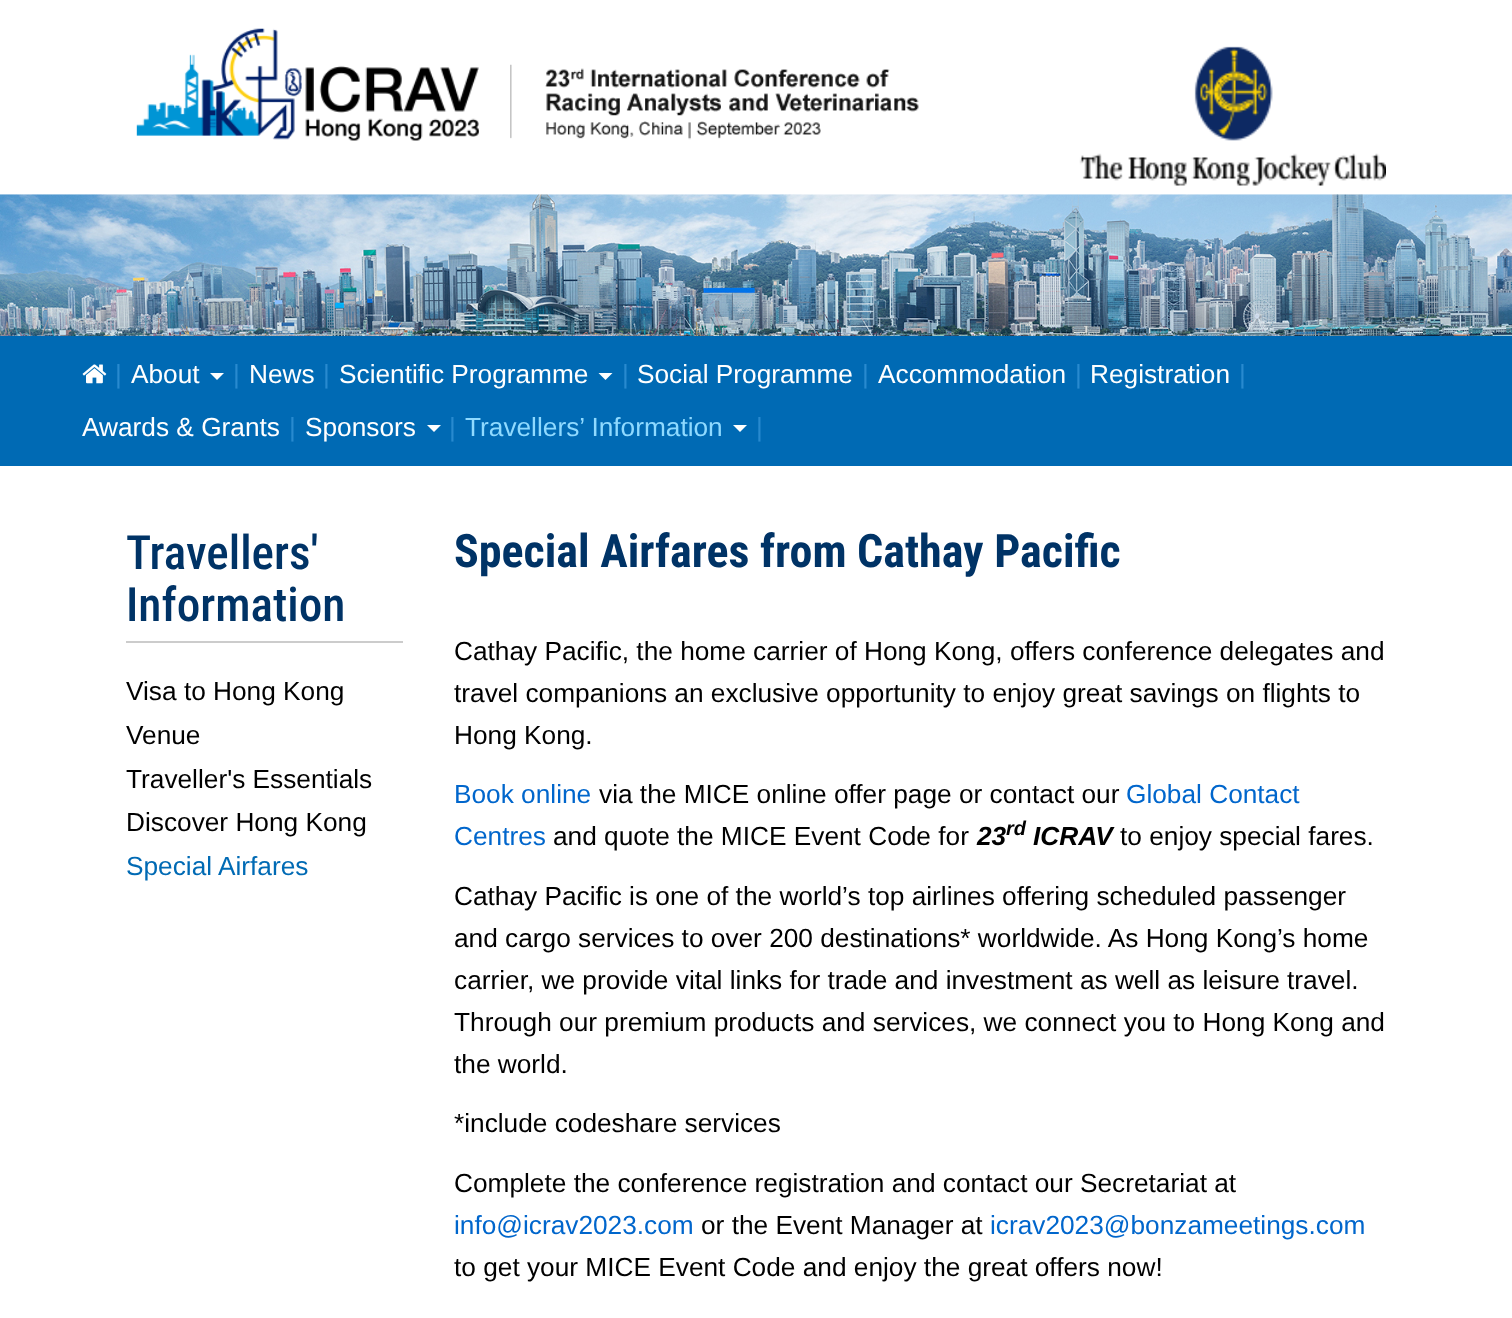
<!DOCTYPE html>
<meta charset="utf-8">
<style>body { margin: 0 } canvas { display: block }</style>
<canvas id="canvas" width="1512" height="1318"></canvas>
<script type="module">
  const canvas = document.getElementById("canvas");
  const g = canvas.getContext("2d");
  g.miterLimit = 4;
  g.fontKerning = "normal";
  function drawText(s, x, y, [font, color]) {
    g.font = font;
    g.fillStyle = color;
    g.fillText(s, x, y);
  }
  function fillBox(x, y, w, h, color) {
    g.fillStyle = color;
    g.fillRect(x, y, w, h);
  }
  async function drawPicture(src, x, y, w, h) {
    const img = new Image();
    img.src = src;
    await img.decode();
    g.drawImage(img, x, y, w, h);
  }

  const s1 = ["26.25px Liberation Sans", "#288ACF"];
  const s2 = ["26.25px Liberation Sans", "#FFFFFF"];
  const s3 = ["26.25px Liberation Sans", "#8FDAFF"];
  const s4 = ["500 47.25px Roboto Condensed", "#003366"];
  const s5 = ["26.25px Liberation Sans", "#000000"];
  const s6 = ["26.25px Liberation Sans", "#006AB4"];
  const s7 = ["bold 46px Roboto Condensed", "#003366"];
  const s8 = ["26.25px Liberation Sans", "#0066CC"];
  const s9 = ["italic bold 26.25px Liberation Sans", "#000000"];
  const s10 = ["italic bold 20px Liberation Sans", "#000000"];

  fillBox(0, 0, 1512, 1318, "#FFFFFF");
  await drawPicture("pic1.png", 136, 28, 783, 113);
  await drawPicture("pic2.png", 1079, 46, 307, 140);
  await drawPicture("pic3.png", 0, 194, 1512, 142);
  fillBox(0, 336, 1512, 130, "#006AB4");
  await drawPicture("pic4.png", 82, 364, 25, 20);
  drawText("|", 115, 383, s1);
  drawText("About", 131, 383, s2);
  g.beginPath();
  g.moveTo(210, 373);
  g.lineTo(224, 373);
  g.lineTo(217, 380);
  g.closePath();
  g.fill();
  drawText("|", 233, 383, s1);
  drawText("News", 249, 383, s2);
  drawText("|", 323, 383, s1);
  drawText("Scientific Programme", 339, 383, s2);
  g.beginPath();
  g.moveTo(598.5, 373);
  g.lineTo(612.5, 373);
  g.lineTo(605.5, 380);
  g.closePath();
  g.fill();
  drawText("|", 622, 383, s1);
  drawText("Social Programme", 637, 383, s2);
  drawText("|", 862, 383, s1);
  drawText("Accommodation", 878, 383, s2);
  drawText("|", 1075, 383, s1);
  drawText("Registration", 1090, 383, s2);
  drawText("|", 1239, 383, s1);
  drawText("Awards & Grants", 82, 436, s2);
  drawText("|", 289, 436, s1);
  drawText("Sponsors", 305, 436, s2);
  g.beginPath();
  g.moveTo(427, 425);
  g.lineTo(441, 425);
  g.lineTo(434, 432);
  g.closePath();
  g.fill();
  drawText("|", 449, 436, s1);
  drawText("Travellers’ Information", 465, 436, s3);
  g.fillStyle = "#FFFFFF";
  g.beginPath();
  g.moveTo(733, 425);
  g.lineTo(747, 425);
  g.lineTo(740, 432);
  g.closePath();
  g.fill();
  drawText("|", 756, 436, s1);
  fillBox(126, 641, 277, 2, "#CCCCCC");
  drawText("Travellers'", 126, 569, s4);
  drawText("Information", 126, 621, s4);
  drawText("Visa to Hong Kong", 126, 700, s5);
  drawText("Venue", 126, 744, s5);
  drawText("Traveller's Essentials", 126, 788, s5);
  drawText("Discover Hong Kong", 126, 831, s5);
  drawText("Special Airfares", 126, 875, s6);
  drawText("Special Airfares from Cathay Pacific", 454, 567, s7);
  drawText("Cathay Pacific, the home carrier of Hong Kong, offers conference delegates and", 454, 660, s5);
  drawText("travel companions an exclusive opportunity to enjoy great savings on flights to", 454, 702, s5);
  drawText("Hong Kong.", 454, 744, s5);
  drawText("Book online", 454, 803, s8);
  drawText("via the MICE online offer page or contact our", 599, 803, s5);
  drawText("Global Contact", 1126, 803, s8);
  drawText("Centres", 454, 845, s8);
  drawText("and quote the MICE Event Code for", 553, 845, s5);
  drawText("23", 977, 845, s9);
  drawText("rd", 1006, 835, s10);
  drawText("ICRAV", 1033, 845, s9);
  drawText("to enjoy special fares.", 1120, 845, s5);
  drawText("Cathay Pacific is one of the world’s top airlines offering scheduled passenger", 454, 905, s5);
  drawText("and cargo services to over 200 destinations* worldwide. As Hong Kong’s home", 454, 947, s5);
  drawText("carrier, we provide vital links for trade and investment as well as leisure travel.", 454, 989, s5);
  drawText("Through our premium products and services, we connect you to Hong Kong and", 454, 1031, s5);
  drawText("the world.", 454, 1073, s5);
  drawText("*include codeshare services", 454, 1132, s5);
  drawText("Complete the conference registration and contact our Secretariat at", 454, 1192, s5);
  drawText("info@icrav2023.com", 454, 1234, s8);
  drawText("or the Event Manager at", 701, 1234, s5);
  drawText("icrav2023@bonzameetings.com", 990, 1234, s8);
  drawText("to get your MICE Event Code and enjoy the great offers now!", 454, 1276, s5);
</script>
